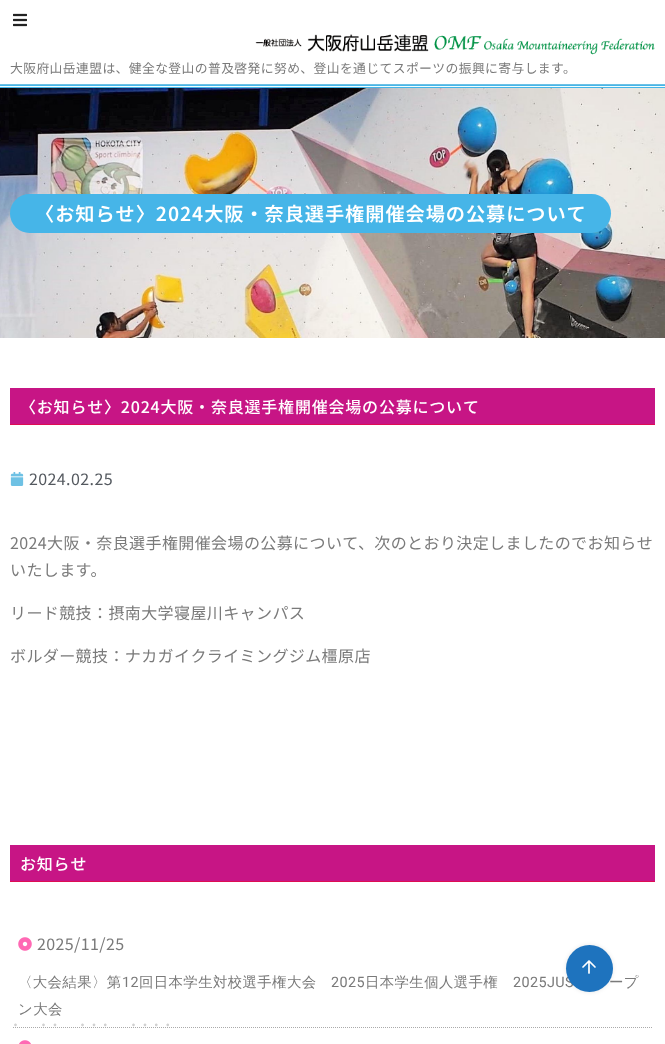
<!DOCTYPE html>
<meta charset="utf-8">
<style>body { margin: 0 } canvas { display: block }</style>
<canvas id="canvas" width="665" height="1044"></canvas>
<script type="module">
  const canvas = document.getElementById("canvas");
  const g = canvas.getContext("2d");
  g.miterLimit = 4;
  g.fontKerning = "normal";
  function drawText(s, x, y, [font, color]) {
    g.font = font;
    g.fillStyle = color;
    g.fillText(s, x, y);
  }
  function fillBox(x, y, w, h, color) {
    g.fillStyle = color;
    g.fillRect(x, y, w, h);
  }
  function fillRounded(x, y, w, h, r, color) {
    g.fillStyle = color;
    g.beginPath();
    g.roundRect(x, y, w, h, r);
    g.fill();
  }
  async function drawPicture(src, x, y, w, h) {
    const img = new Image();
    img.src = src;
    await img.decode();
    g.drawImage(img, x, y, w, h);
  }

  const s1 = ["12.8px Noto Sans JP", "#7A7A7A"];
  const s2 = ["600 19.2px Noto Sans JP", "#FFFFFF"];
  const s3 = ["500 16px Noto Sans JP", "#FFFFFF"];
  const s4 = ["16px Noto Sans JP", "#54595F"];
  const s5 = ["16px Noto Sans JP", "#7A7A7A"];
  const s6 = ["500 14.4px WenQuanYi Zen Hei", "#7A7A7A"];
  const s7 = ["14.4px Roboto", "#7A7A7A"];
  const s8 = ["600 11px Noto Sans JP", "#D0D0D0"];

  fillBox(0, 0, 665, 1044, "#FFFFFF");
  fillBox(0, 86, 665, 1, "#F0FFFF");
  fillBox(0, 85, 665, 1, "#46B5E8");
  fillBox(0, 87, 665, 1, "#46B5E8");
  await drawPicture("pic1.png", 13, 13, 14, 14);
  fillBox(0, 84, 665, 1, "#6EC1E4");
  await drawPicture("pic2.png", 255, 34, 400, 21);
  g.letterSpacing = "0.4px";
  drawText("大阪府山岳連盟は、健全な登山の普及啓発に努め、登山を通じてスポーツの振興に寄与します。", 10, 73, s1);
  await drawPicture("pic3.png", 0, 88, 665, 250);
  fillRounded(10, 194, 601, 39, 19.5, "#46B5E8");
  g.letterSpacing = "0.95px";
  drawText("〈お知らせ〉2024大阪・奈良選手権開催会場の公募について", 35, 221, s2);
  fillBox(10, 388, 645, 36, "#C71585");
  g.letterSpacing = "0.8px";
  drawText("〈お知らせ〉2024大阪・奈良選手権開催会場の公募について", 20, 413, s3);
  fillBox(10, 424, 645, 1, "#DE0C54");
  await drawPicture("pic4.png", 10, 472, 14, 14);
  g.letterSpacing = "0.4px";
  drawText("2024.02.25", 29, 485, s4);
  drawText("2024大阪・奈良選手権開催会場の公募について、次のとおり決定しましたのでお知らせ", 10, 549, s5);
  drawText("いたします。", 10, 576, s5);
  drawText("リード競技：摂南大学寝屋川キャンパス", 10, 619, s5);
  drawText("ボルダー競技：ナカガイクライミングジム橿原店", 10, 662, s5);
  fillBox(10, 845, 645, 36, "#C71585");
  g.letterSpacing = "0.8px";
  drawText("お知らせ", 20, 870, s3);
  fillBox(10, 881, 645, 1, "#DE0C54");
  g.beginPath();
  g.moveTo(13, 1027.5);
  g.lineTo(652, 1027.5);
  g.strokeStyle = "#AAAAAA";
  g.setLineDash([1, 1]);
  g.stroke();
  await drawPicture("pic5.png", 18, 937, 14, 14);
  g.letterSpacing = "0.4px";
  drawText("2025/11/25", 37, 950, s5);
  drawText("〈大会結果〉第", 18, 987, s6);
  drawText("12", 122, 987, s7);
  drawText("回日本学生対校選手権大会", 139, 987, s6);
  drawText("2025", 331, 987, s7);
  drawText("日本学生個人選手権", 365, 987, s6);
  drawText("2025JUS", 513, 987, s7);
  drawText("ープ", 609, 987, s6);
  drawText("ン大会", 18, 1014, s6);
  await drawPicture("pic6.png", 19, 1040, 12, 4);
  g.fillStyle = "rgba(0, 0, 0, 0.1)";
  g.filter = "blur(2px)";
  g.beginPath();
  g.roundRect(566, 945, 47, 47, 23.5);
  g.fill();
  g.filter = "none";
  g.fillStyle = "#1E73BE";
  g.beginPath();
  g.arc(589.5, 968.5, 23.5, 0, Math.PI * 2);
  g.fill();
  g.beginPath();
  g.moveTo(589, 973);
  g.lineTo(589, 961);
  g.moveTo(583, 967);
  g.lineTo(589, 961);
  g.lineTo(595, 967);
  g.strokeStyle = "#FFFFFF";
  g.lineWidth = 1.7;
  g.lineCap = "round";
  g.lineJoin = "round";
  g.setLineDash([]);
  g.stroke();
  drawText("・", 10, 1029, s8);
  drawText("・・", 38, 1029, s8);
  drawText("・・・", 77, 1029, s8);
  drawText("・・・・", 128, 1029, s8);
</script>
